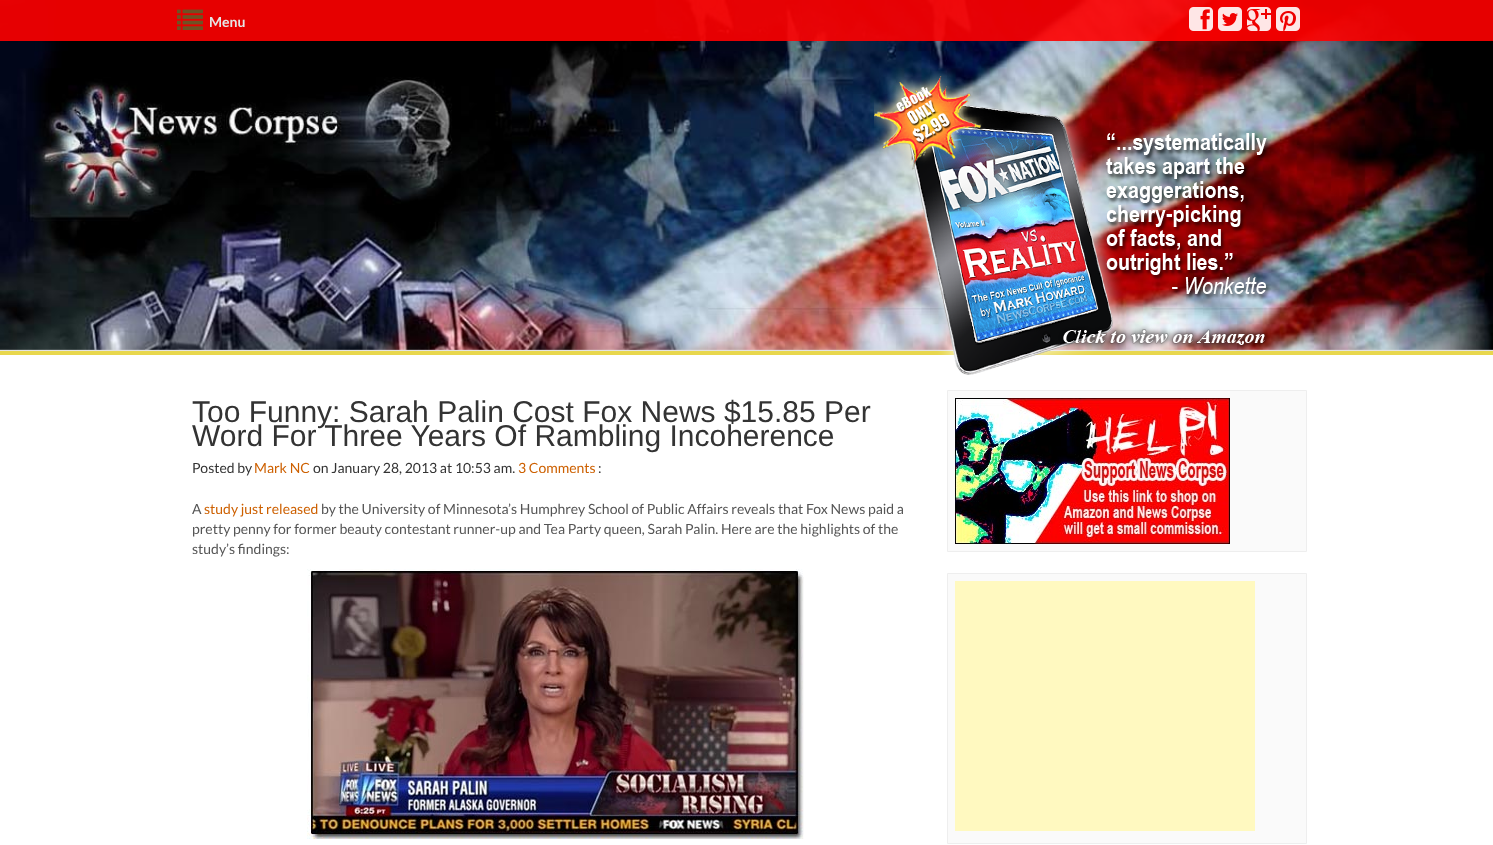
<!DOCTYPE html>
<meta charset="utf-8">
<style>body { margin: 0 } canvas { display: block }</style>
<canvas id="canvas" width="1493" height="845"></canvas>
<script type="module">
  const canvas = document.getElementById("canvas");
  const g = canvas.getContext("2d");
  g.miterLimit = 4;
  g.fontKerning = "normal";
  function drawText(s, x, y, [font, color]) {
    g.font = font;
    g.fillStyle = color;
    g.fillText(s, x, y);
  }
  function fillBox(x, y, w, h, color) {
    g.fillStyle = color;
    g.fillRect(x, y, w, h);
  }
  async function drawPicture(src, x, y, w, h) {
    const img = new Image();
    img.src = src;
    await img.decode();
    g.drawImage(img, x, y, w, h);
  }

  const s1 = ["bold 14px Lato", "#E6E6E6"];
  const s2 = ["30px Liberation Sans", "#333333"];
  const s3 = ["14px Lato", "#333333"];
  const s4 = ["14px Lato", "#CD6000"];
  const s5 = ["14px Lato", "#555555"];

  fillBox(0, 0, 1493, 845, "#E3E3E3");
  await drawPicture("pic1.png", 0, 0, 1493, 350);
  fillBox(0, 0, 1493, 41, "rgba(255, 0, 0, 0.9)");
  await drawPicture("pic2.png", 177, 9, 26, 21);
  drawText("Menu", 209, 27, s1);
  await drawPicture("pic3.png", 1189, 7, 24, 24);
  await drawPicture("pic4.png", 1218, 7, 24, 24);
  await drawPicture("pic5.png", 1247, 7, 24, 24);
  await drawPicture("pic6.png", 1276, 7, 24, 24);
  fillBox(0, 355, 1493, 490, "#FFFFFF");
  fillBox(0, 351, 1493, 4, "#E8D74D");
  await drawPicture("pic7.png", 874, 71, 397, 304);
  drawText("Too Funny: Sarah Palin Cost Fox News $15.85 Per", 192, 422, s2);
  drawText("Word For Three Years Of Rambling Incoherence", 192, 446, s2);
  drawText("Posted by", 192, 473, s3);
  drawText("Mark NC", 254, 473, s4);
  drawText("on January 28, 2013 at 10:53 am.", 313, 473, s3);
  drawText("3 Comments", 518, 473, s4);
  drawText(":", 598, 473, s3);
  drawText("A", 192, 514, s5);
  drawText("study just released", 204, 514, s4);
  drawText("by the University of Minnesota’s Humphrey School of Public Affairs reveals that Fox News paid a", 321, 514, s5);
  drawText("pretty penny for former beauty contestant runner-up and Tea Party queen, Sarah Palin. Here are the highlights of the", 192, 534, s5);
  drawText("study’s findings:", 192, 554, s5);
  await drawPicture("pic8.png", 307, 569, 497, 270);
  g.fillStyle = "#FAFAFA";
  g.beginPath();
  g.rect(947.5, 390.5, 359, 161);
  g.fill();
  g.strokeStyle = "#EEEEEE";
  g.stroke();
  await drawPicture("pic9.png", 955, 398, 275, 146);
  g.beginPath();
  g.rect(947.5, 573.5, 359, 270);
  g.fill();
  g.stroke();
  fillBox(955, 581, 300, 250, "#FFF9C0");
</script>
